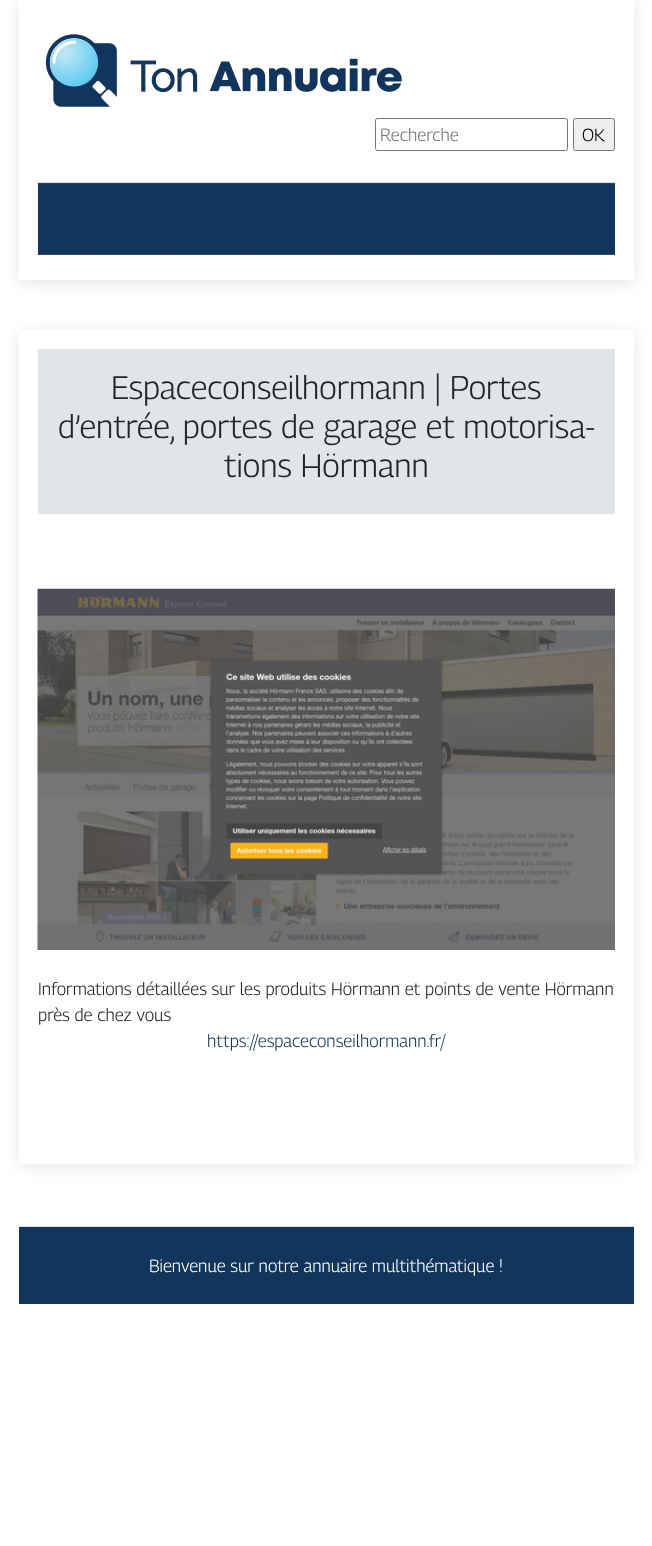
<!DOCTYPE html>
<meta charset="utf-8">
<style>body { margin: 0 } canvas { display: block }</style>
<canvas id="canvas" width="652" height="1546"></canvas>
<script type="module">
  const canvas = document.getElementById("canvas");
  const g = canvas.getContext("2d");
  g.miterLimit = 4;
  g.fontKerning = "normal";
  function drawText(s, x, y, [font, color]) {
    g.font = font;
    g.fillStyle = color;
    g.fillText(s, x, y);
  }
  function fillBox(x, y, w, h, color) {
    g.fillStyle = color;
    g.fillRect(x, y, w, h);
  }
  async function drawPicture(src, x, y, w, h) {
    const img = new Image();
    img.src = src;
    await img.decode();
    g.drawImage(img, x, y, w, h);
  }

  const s1 = ["100 17.5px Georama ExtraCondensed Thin", "#757575"];
  const s2 = ["100 17.5px Georama ExtraCondensed Thin", "#000000"];
  const s3 = ["100 32.5px Georama ExtraCondensed Thin", "#212529"];
  const s4 = ["100 17.5px Georama ExtraCondensed Thin", "#212529"];
  const s5 = ["100 17.5px Georama ExtraCondensed Thin", "#11355C"];
  const s6 = ["100 17.5px Georama ExtraCondensed Thin", "#FFFFFF"];

  fillBox(0, 0, 652, 1546, "#FFFFFF");
  g.fillStyle = "rgba(0, 0, 0, 0.1)";
  g.filter = "blur(8px)";
  g.beginPath();
  g.rect(19, 3, 615, 280);
  g.fill();
  g.filter = "none";
  fillBox(19, 0, 615, 280, "#FFFFFF");
  await drawPicture("pic1.png", 45, 34, 357, 73);
  g.beginPath();
  g.roundRect(375.5, 118.5, 192, 32, 2);
  g.strokeStyle = "#767676";
  g.stroke();
  drawText("Recherche", 380, 141, s1);
  g.fillStyle = "#EFEFEF";
  g.beginPath();
  g.roundRect(573.5, 118.5, 41, 32, 2);
  g.fill();
  g.stroke();
  drawText("OK", 582, 141, s2);
  fillBox(38, 183, 577, 72, "#11355C");
  g.beginPath();
  g.moveTo(37.5, 183);
  g.lineTo(615, 183);
  g.strokeStyle = "#666666";
  g.lineWidth = 1.2;
  g.setLineDash([1.25, 1.25]);
  g.stroke();
  g.beginPath();
  g.moveTo(37.5, 254.5);
  g.lineTo(615, 254.5);
  g.stroke();
  g.fillStyle = "rgba(0, 0, 0, 0.1)";
  g.filter = "blur(8px)";
  g.beginPath();
  g.rect(19, 333, 615, 833);
  g.fill();
  g.filter = "none";
  fillBox(19, 330, 615, 834, "#FFFFFF");
  fillBox(38, 349, 577, 165, "#E0E5EA");
  drawText("Espaceconseilhormann | Portes", 111, 399, s3);
  drawText("d’entrée, portes de garage et motorisa-", 58, 438, s3);
  drawText("tions Hörmann", 224, 477, s3);
  await drawPicture("pic2.png", 37, 588, 578, 362);
  drawText("Informations détaillées sur les produits Hörmann et points de vente Hörmann", 38, 995, s4);
  drawText("près de chez vous", 38, 1021, s4);
  drawText("https://espaceconseilhormann.fr/", 207, 1047, s5);
  fillBox(19, 1227, 615, 77, "#11355B");
  fillBox(19, 1226, 615, 1, "#DDDDDD");
  drawText("Bienvenue sur notre annuaire multithématique !", 149, 1272, s6);
</script>
